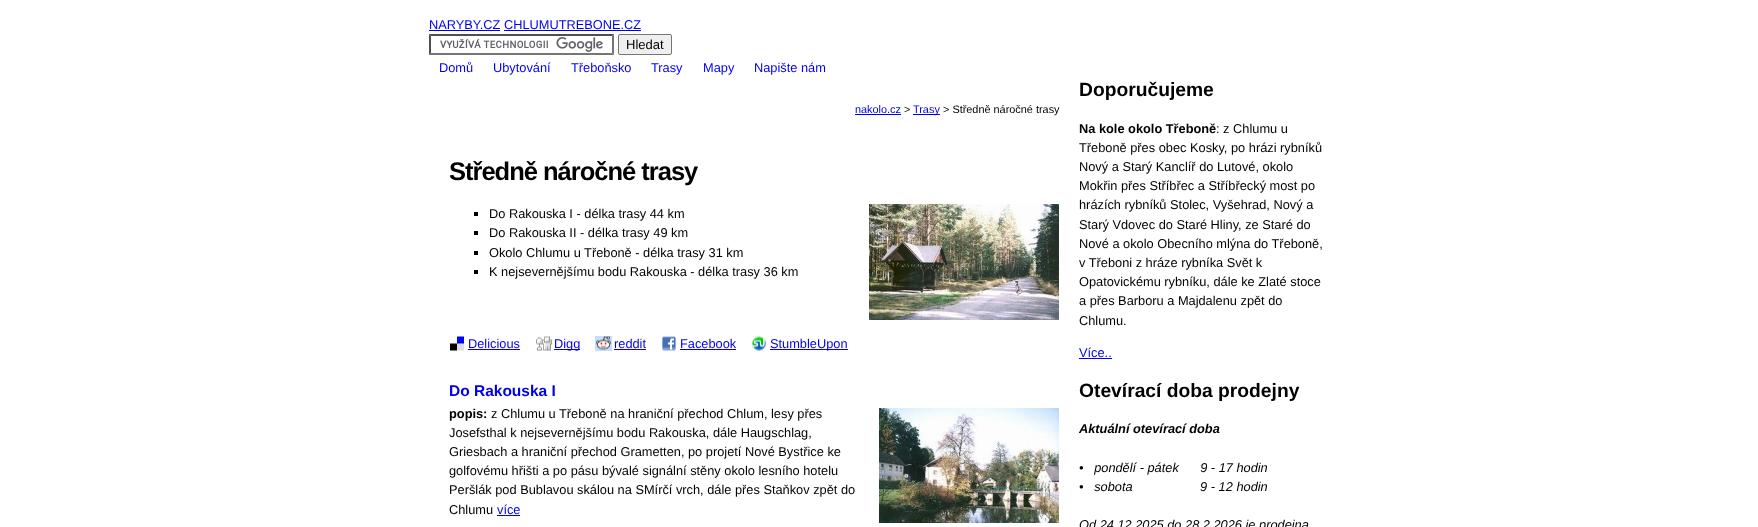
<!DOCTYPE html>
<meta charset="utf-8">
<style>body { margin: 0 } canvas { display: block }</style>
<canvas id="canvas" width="1758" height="527"></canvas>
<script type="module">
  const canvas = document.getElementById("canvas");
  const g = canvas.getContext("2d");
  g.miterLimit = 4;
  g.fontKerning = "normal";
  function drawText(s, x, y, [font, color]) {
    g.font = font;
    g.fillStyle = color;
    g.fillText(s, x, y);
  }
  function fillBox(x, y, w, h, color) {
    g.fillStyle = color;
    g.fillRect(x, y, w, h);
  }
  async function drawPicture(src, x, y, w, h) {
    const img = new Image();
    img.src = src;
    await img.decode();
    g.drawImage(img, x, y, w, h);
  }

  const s1 = ["12.8px Liberation Sans", "#0000EE"];
  const s2 = ["13px Liberation Sans", "#000000"];
  const s3 = ["10.9px Liberation Sans", "#0000EE"];
  const s4 = ["10.9px Liberation Sans", "#000000"];
  const s5 = ["bold 25.5px Liberation Sans", "#000000"];
  const s6 = ["12.8px Liberation Sans", "#000000"];
  const s7 = ["bold 15.5px Liberation Sans", "#0000EE"];
  const s8 = ["bold 12.8px Liberation Sans", "#000000"];
  const s9 = ["bold 19.25px Liberation Sans", "#000000"];
  const s10 = ["italic bold 12.8px Liberation Sans", "#000000"];
  const s11 = ["italic 12.8px Liberation Sans", "#000000"];

  fillBox(0, 0, 1758, 527, "#FFFFFF");
  drawText("NARYBY.CZ CHLUMUTREBONE.CZ", 429, 29, s1);
  fillBox(429, 30, 71, 1, "#0000EE");
  fillBox(504, 30, 137, 1, "#0000EE");
  await drawPicture("pic1.png", 440, 37, 163, 15);
  g.fillStyle = "#4F4F4F";
  g.beginPath();
  g.moveTo(429, 34);
  g.lineTo(614, 34);
  g.lineTo(612, 36);
  g.lineTo(431, 36);
  g.closePath();
  g.fill();
  g.fillStyle = "#767676";
  g.beginPath();
  g.moveTo(614, 34);
  g.lineTo(614, 55);
  g.lineTo(612, 53);
  g.lineTo(612, 36);
  g.closePath();
  g.fill();
  g.beginPath();
  g.moveTo(614, 55);
  g.lineTo(429, 55);
  g.lineTo(431, 53);
  g.lineTo(612, 53);
  g.closePath();
  g.fill();
  g.fillStyle = "#4F4F4F";
  g.beginPath();
  g.moveTo(429, 55);
  g.lineTo(429, 34);
  g.lineTo(431, 36);
  g.lineTo(431, 53);
  g.closePath();
  g.fill();
  g.fillStyle = "#EFEFEF";
  g.beginPath();
  g.roundRect(618.5, 34.5, 53, 20, 1.5);
  g.fill();
  g.strokeStyle = "#767676";
  g.stroke();
  drawText("Hledat", 626, 49, s2);
  drawText("Domů", 439, 72, s1);
  drawText("Ubytování", 493, 72, s1);
  drawText("Třeboňsko", 571, 72, s1);
  drawText("Trasy", 651, 72, s1);
  drawText("Mapy", 703, 72, s1);
  drawText("Napište nám", 754, 72, s1);
  drawText("nakolo.cz", 855, 113, s3);
  fillBox(855, 114, 46, 1, "#0000EE");
  drawText(">", 904, 113, s4);
  fillBox(913, 114, 27, 1, "#0000EE");
  drawText("Trasy", 913, 113, s3);
  drawText("> Středně náročné trasy", 943, 113, s4);
  g.letterSpacing = "-1px";
  drawText("Středně náročné trasy", 449, 180, s5);
  fillBox(474, 212, 4, 4, "#000000");
  g.letterSpacing = "0px";
  drawText("Do Rakouska I - délka trasy 44 km", 489, 218, s6);
  fillBox(474, 231, 4, 4, "#000000");
  drawText("Do Rakouska II - délka trasy 49 km", 489, 237, s6);
  fillBox(474, 251, 4, 4, "#000000");
  drawText("Okolo Chlumu u Třeboně - délka trasy 31 km", 489, 257, s6);
  fillBox(474, 270, 4, 4, "#000000");
  drawText("K nejsevernějšímu bodu Rakouska - délka trasy 36 km", 489, 276, s6);
  await drawPicture("pic2.png", 869, 204, 190, 116);
  await drawPicture("pic3.png", 450, 336, 14, 15);
  drawText("Delicious", 468, 348, s1);
  fillBox(468, 349, 52, 1, "#0000EE");
  await drawPicture("pic4.png", 536, 336, 16, 15);
  fillBox(554, 349, 26, 1, "#0000EE");
  drawText("Digg", 554, 348, s1);
  await drawPicture("pic5.png", 595, 336, 17, 15);
  drawText("reddit", 614, 348, s1);
  fillBox(614, 349, 32, 1, "#0000EE");
  await drawPicture("pic6.png", 662, 336, 14, 15);
  drawText("Facebook", 680, 348, s1);
  fillBox(680, 349, 56, 1, "#0000EE");
  await drawPicture("pic7.png", 752, 336, 14, 15);
  fillBox(770, 349, 78, 1, "#0000EE");
  drawText("StumbleUpon", 770, 348, s1);
  drawText("Do Rakouska I", 449, 396, s7);
  drawText("popis:", 449, 418, s8);
  drawText("z Chlumu u Třeboně na hraniční přechod Chlum, lesy přes", 491, 418, s6);
  drawText("Josefsthal k nejsevernějšímu bodu Rakouska, dále Haugschlag,", 449, 437, s6);
  drawText("Griesbach a hraniční přechod Grametten, po projetí Nové Bystřice ke", 449, 456, s6);
  drawText("golfovému hřišti a po pásu bývalé signální stěny okolo lesního hotelu", 449, 475, s6);
  drawText("Peršlák pod Bublavou skálou na SMírčí vrch, dále přes Staňkov zpět do", 449, 494, s6);
  drawText("Chlumu", 449, 514, s6);
  drawText("více", 497, 514, s1);
  fillBox(497, 515, 23, 1, "#0000EE");
  await drawPicture("pic8.png", 879, 408, 180, 115);
  drawText("Doporučujeme", 1079, 96, s9);
  drawText("Na kole okolo Třeboně", 1079, 133, s8);
  drawText(": z Chlumu u", 1216, 133, s6);
  drawText("Třeboně přes obec Kosky, po hrázi rybníků", 1079, 152, s6);
  drawText("Nový a Starý Kanclíř do Lutové, okolo", 1079, 171, s6);
  drawText("Mokřin přes Stříbřec a Stříbřecký most po", 1079, 190, s6);
  drawText("hrázích rybníků Stolec, Vyšehrad, Nový a", 1079, 209, s6);
  drawText("Starý Vdovec do Staré Hliny, ze Staré do", 1079, 229, s6);
  drawText("Nové a okolo Obecního mlýna do Třeboně,", 1079, 248, s6);
  drawText("v Třeboni z hráze rybníka Svět k", 1079, 267, s6);
  drawText("Opatovickému rybníku, dále ke Zlaté stoce", 1079, 286, s6);
  drawText("a přes Barboru a Majdalenu zpět do", 1079, 305, s6);
  drawText("Chlumu.", 1079, 325, s6);
  drawText("Více..", 1079, 357, s1);
  fillBox(1079, 358, 33, 1, "#0000EE");
  drawText("Otevírací doba prodejny", 1079, 397, s9);
  drawText("Aktuální otevírací doba", 1079, 433, s10);
  drawText("•   pondělí - pátek      9 - 17 hodin", 1079, 472, s11);
  drawText("•   sobota                   9 - 12 hodin", 1079, 491, s11);
  drawText("Od 24.12.2025 do 28.2.2026 je prodejna", 1079, 529, s11);
</script>
